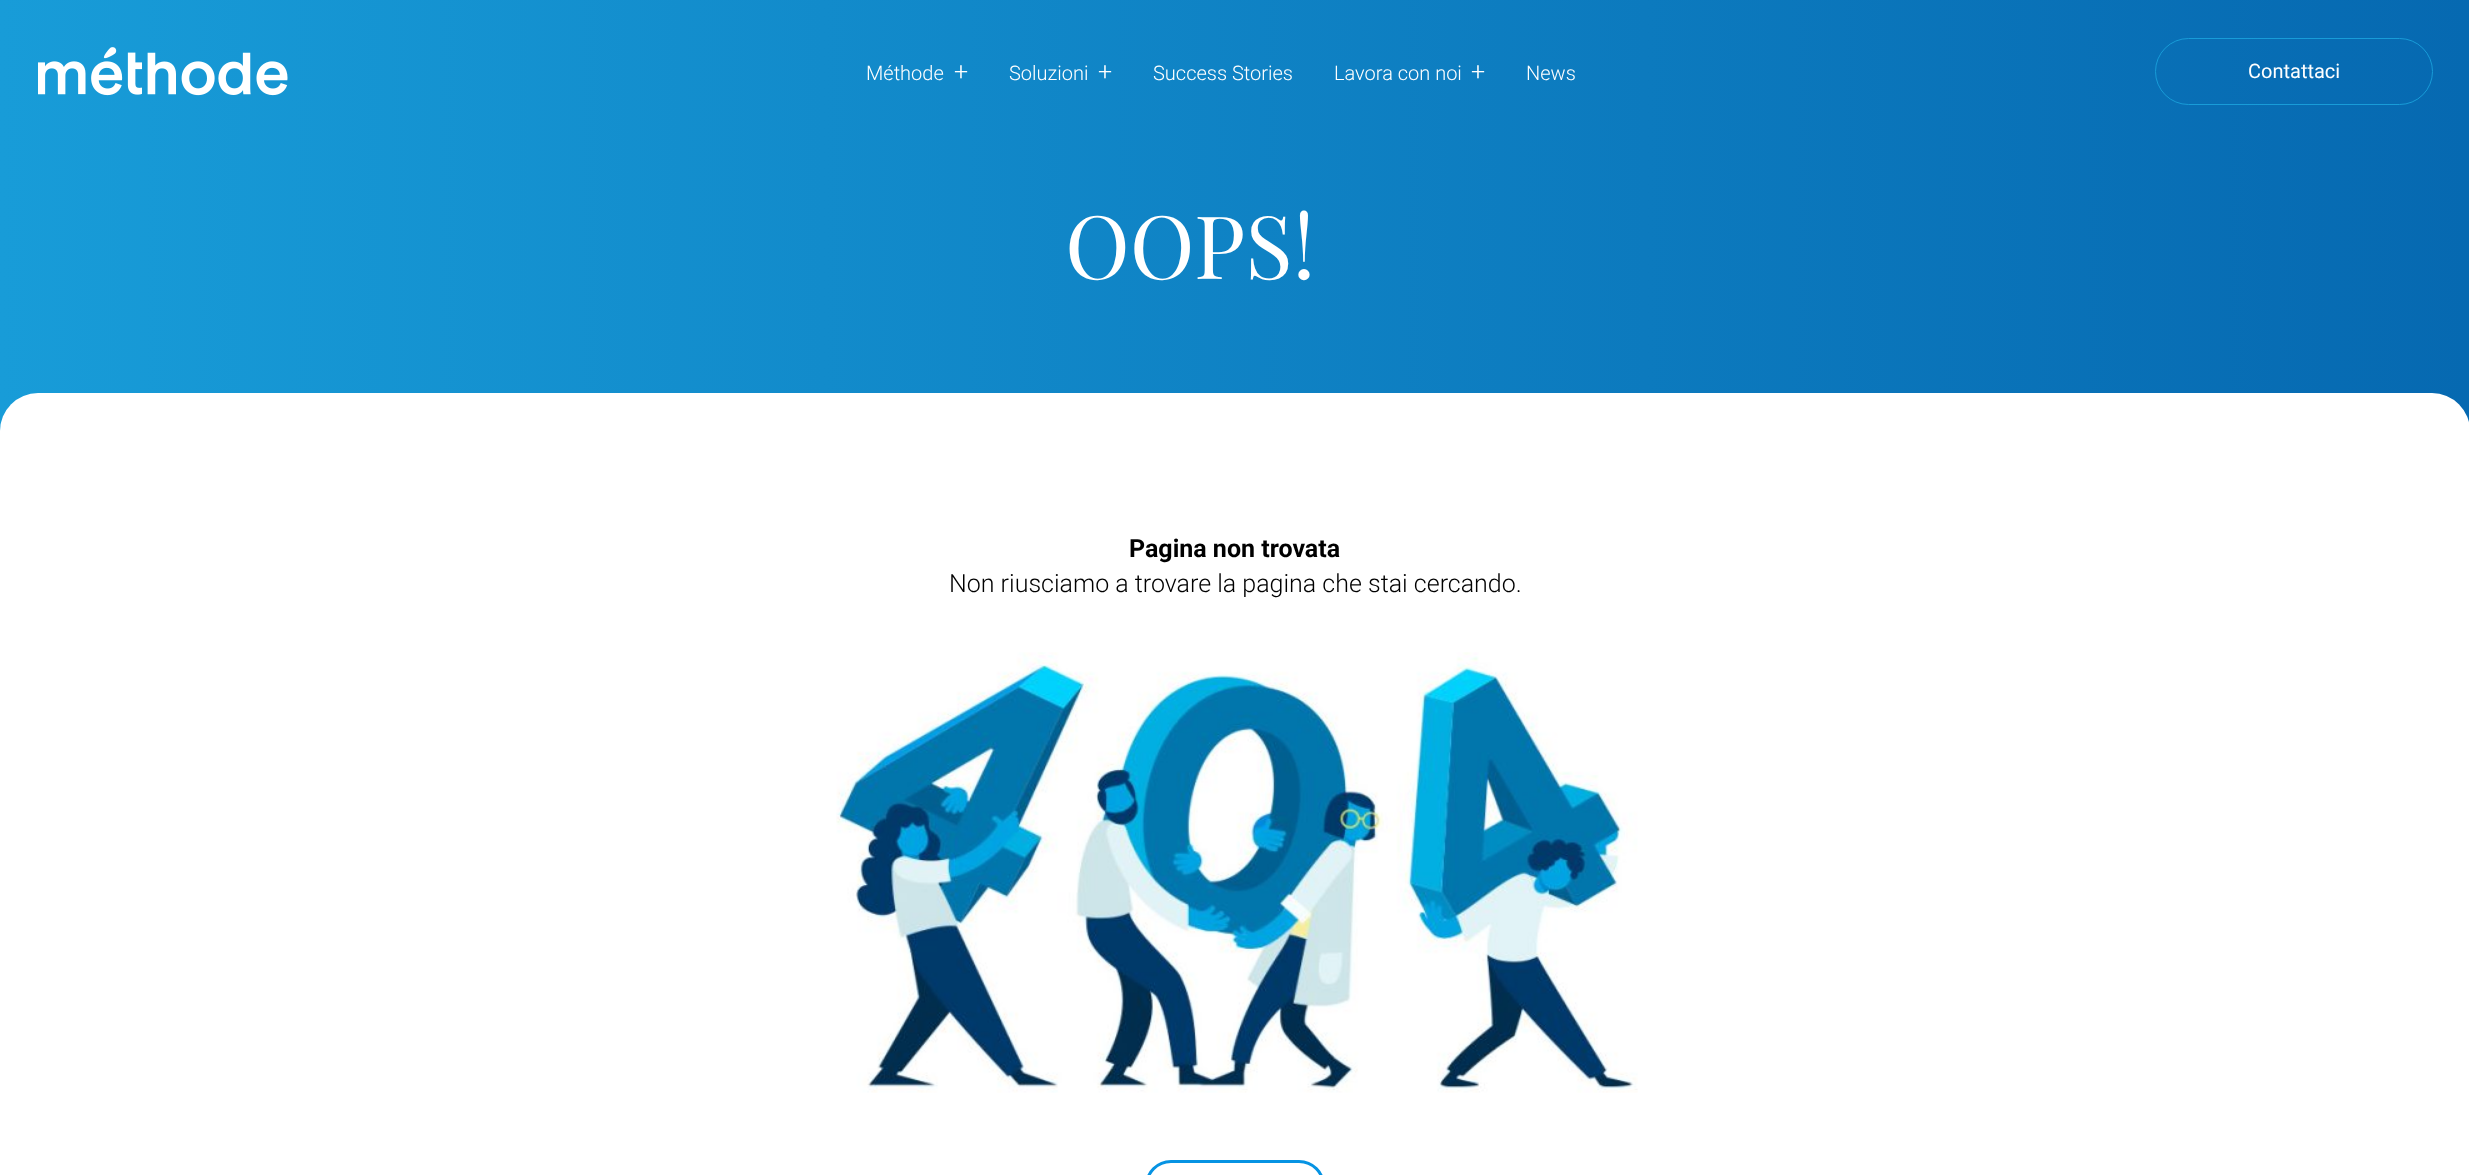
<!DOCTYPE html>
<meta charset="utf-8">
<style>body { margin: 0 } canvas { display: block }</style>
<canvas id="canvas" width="2469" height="1175"></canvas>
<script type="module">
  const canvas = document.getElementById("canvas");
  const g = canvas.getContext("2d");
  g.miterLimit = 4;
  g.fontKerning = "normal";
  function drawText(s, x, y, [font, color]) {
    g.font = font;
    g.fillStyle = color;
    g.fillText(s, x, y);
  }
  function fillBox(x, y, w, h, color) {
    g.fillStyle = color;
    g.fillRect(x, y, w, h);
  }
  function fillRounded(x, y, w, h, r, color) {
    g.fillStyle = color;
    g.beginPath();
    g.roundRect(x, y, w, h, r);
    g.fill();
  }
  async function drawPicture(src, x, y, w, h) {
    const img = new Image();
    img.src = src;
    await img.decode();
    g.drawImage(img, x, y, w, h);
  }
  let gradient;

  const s1 = ["300 20px Roboto", "#FFFFFF"];
  const s2 = ["300 25px Roboto", "#FFFFFF"];
  const s3 = ["20px Roboto", "#FFFFFF"];
  const s4 = ["87.5px Playfair Display", "#FFFFFF"];
  const s5 = ["bold 25px Roboto", "#000000"];
  const s6 = ["300 25px Roboto", "#000000"];

  fillBox(0, 0, 2469, 1175, "#FFFFFF");
  gradient = g.createLinearGradient(0, 1152, 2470, 1152);
  gradient.addColorStop(0, "#189CD8");
  gradient.addColorStop(1, "#0669B1");
  g.fillStyle = gradient;
  g.fillRect(0, 0, 2469, 431);
  await drawPicture("pic1.png", 38, 47, 250, 49);
  drawText("Méthode", 866, 80, s1);
  drawText("+", 954, 80, s2);
  drawText("Soluzioni", 1009, 80, s1);
  drawText("+", 1098, 80, s2);
  drawText("Success Stories", 1153, 80, s1);
  drawText("Lavora con noi", 1334, 80, s1);
  drawText("+", 1471, 80, s2);
  drawText("News", 1526, 80, s1);
  g.beginPath();
  g.roundRect(2155.5, 38.5, 277, 66, 33);
  g.strokeStyle = "#189CD8";
  g.stroke();
  drawText("Contattaci", 2248, 78, s3);
  drawText("OOPS!", 1065, 279, s4);
  fillRounded(0, 393, 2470, 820, 38, "#FFFFFF");
  drawText("Pagina non trovata", 1129, 557, s5);
  drawText("Non riusciamo a trovare la pagina che stai cercando.", 949, 592, s6);
  await drawPicture("pic2.png", 836, 652, 802, 441);
  g.beginPath();
  g.roundRect(1146.5, 1161.5, 177, 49, 32.5);
  g.strokeStyle = "#0693E3";
  g.lineWidth = 3;
  g.stroke();
</script>
